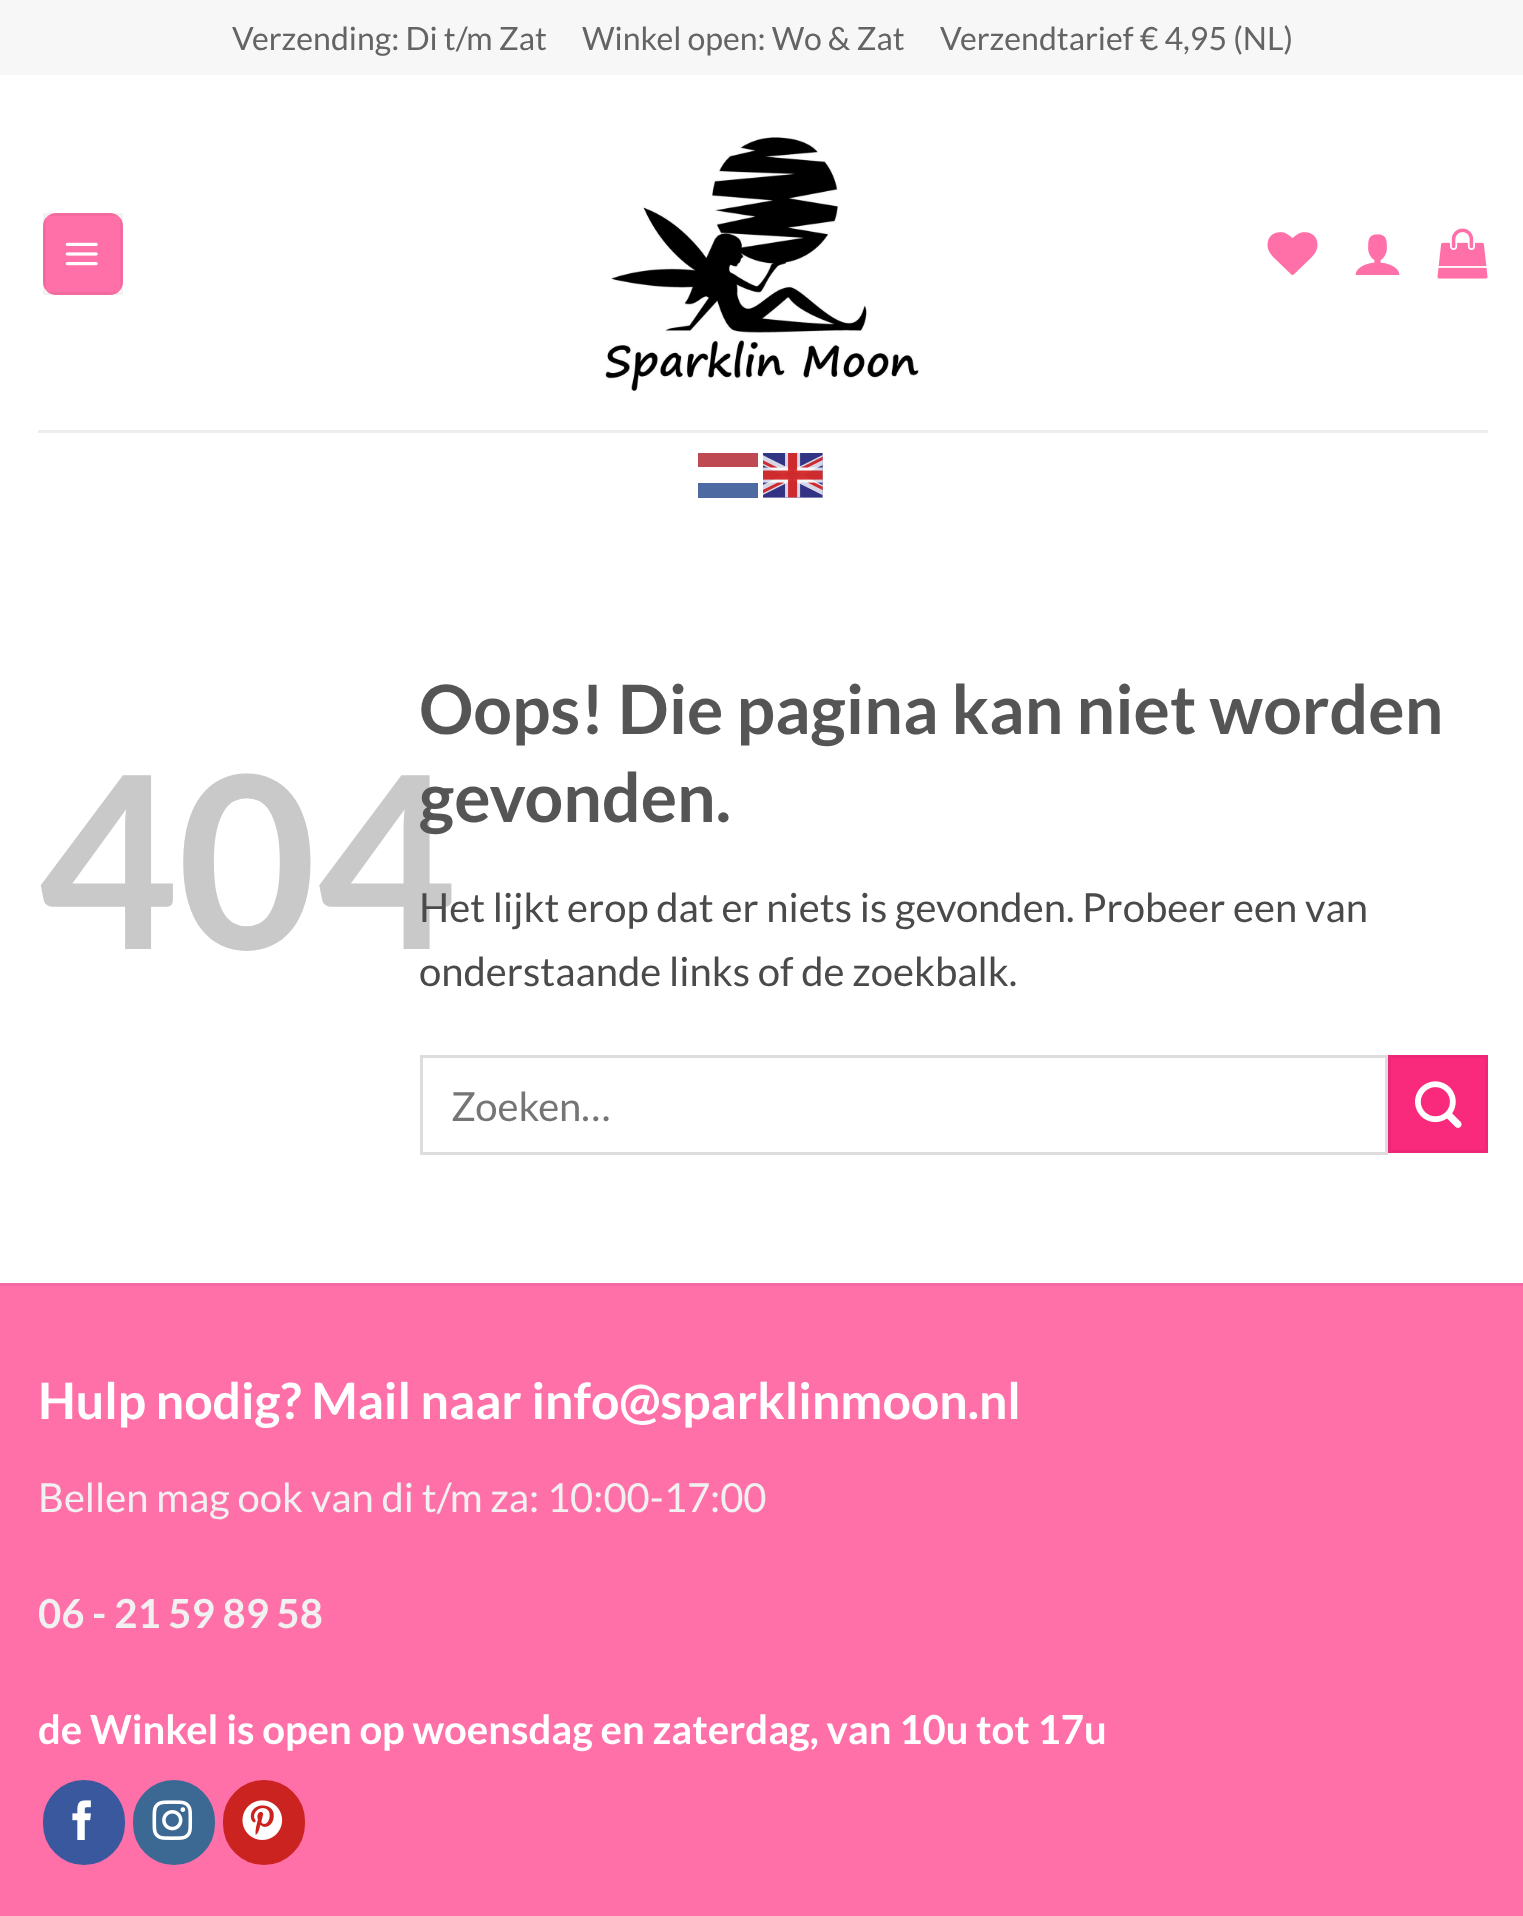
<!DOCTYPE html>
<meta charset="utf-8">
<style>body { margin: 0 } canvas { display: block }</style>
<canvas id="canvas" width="1523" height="1916"></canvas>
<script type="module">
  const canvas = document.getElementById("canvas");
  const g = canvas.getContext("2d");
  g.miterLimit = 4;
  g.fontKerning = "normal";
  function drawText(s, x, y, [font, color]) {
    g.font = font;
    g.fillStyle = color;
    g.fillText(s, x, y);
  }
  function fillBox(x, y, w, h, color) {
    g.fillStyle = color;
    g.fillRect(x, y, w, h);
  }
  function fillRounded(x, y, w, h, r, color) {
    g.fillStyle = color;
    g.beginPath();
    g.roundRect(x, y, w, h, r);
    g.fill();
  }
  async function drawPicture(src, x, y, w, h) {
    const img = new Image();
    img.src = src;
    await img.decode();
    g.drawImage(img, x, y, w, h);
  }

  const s1 = ["32px Lato", "#646464"];
  const s2 = ["bold 240px Lato", "#C9C9C9"];
  const s3 = ["bold 68px Lato", "#555555"];
  const s4 = ["40px Lato", "#4A4A4A"];
  const s5 = ["40px Lato", "#757575"];
  const s6 = ["bold 50px Lato", "#FFFFFF"];
  const s7 = ["40px Lato", "#F1F1F1"];
  const s8 = ["bold 40px Lato", "#F1F1F1"];
  const s9 = ["bold 40px Lato", "#FFFFFF"];

  fillBox(0, 0, 1523, 1916, "#FFFFFF");
  fillBox(0, 0, 1523, 75, "#F7F7F7");
  drawText("Verzending: Di t/m Zat", 232, 50, s1);
  drawText("Winkel open: Wo & Zat", 582, 50, s1);
  drawText("Verzendtarief € 4,95 (NL)", 940, 50, s1);
  fillRounded(43, 213, 80, 82, 13, "#FF70A9");
  g.strokeStyle = "rgba(0, 0, 0, 0.05)";
  g.lineWidth = 3;
  g.strokeRect(44.5, 214.5, 77, 79);
  await drawPicture("pic1.png", 65, 242, 33, 24);
  await drawPicture("pic2.png", 605, 137, 314, 255);
  await drawPicture("pic3.png", 1267, 232, 51, 43);
  await drawPicture("pic4.png", 1355, 234, 45, 41);
  await drawPicture("pic5.png", 1437, 228, 51, 51);
  fillBox(38, 430, 1450, 3, "#EDEDED");
  fillBox(698, 453, 60, 14, "#BE4953");
  await drawPicture("pic6.png", 763, 453, 60, 45);
  fillBox(698, 483, 60, 15, "#4D6BA2");
  drawText("404", 38, 949, s2);
  drawText("Oops! Die pagina kan niet worden", 419, 734, s3);
  drawText("gevonden.", 419, 822, s3);
  drawText("Het lijkt erop dat er niets is gevonden. Probeer een van", 419, 922, s4);
  drawText("onderstaande links of de zoekbalk.", 419, 986, s4);
  g.strokeStyle = "#DDDDDD";
  g.strokeRect(421.5, 1056.5, 965, 97);
  drawText("Zoeken…", 451, 1121, s5);
  g.fillStyle = "#F9297C";
  g.beginPath();
  g.rect(1389.5, 1056.5, 97, 95);
  g.fill();
  g.strokeStyle = "#ED2776";
  g.stroke();
  await drawPicture("pic7.png", 1415, 1081, 47, 47);
  fillBox(0, 1286, 1523, 630, "#FF70A9");
  fillBox(0, 1283, 1523, 3, "#F26AA1");
  drawText("Hulp nodig? Mail naar info@sparklinmoon.nl", 38, 1419, s6);
  drawText("Bellen mag ook van di t/m za: 10:00-17:00", 38, 1512, s7);
  drawText("06 - 21 59 89 58", 38, 1628, s8);
  drawText("de Winkel is open op woensdag en zaterdag, van 10u tot 17u", 38, 1744, s9);
  g.fillStyle = "#3A589D";
  g.beginPath();
  g.roundRect(44.5, 1781.5, 79, 82, 39.5);
  g.fill();
  g.strokeStyle = "#3A589D";
  g.stroke();
  await drawPicture("pic8.png", 72, 1800, 19, 40);
  g.fillStyle = "#3B6994";
  g.beginPath();
  g.roundRect(134.5, 1781.5, 79, 82, 39.5);
  g.fill();
  g.strokeStyle = "#3B6994";
  g.stroke();
  await drawPicture("pic9.png", 152, 1800, 41, 40);
  g.fillStyle = "#CB2320";
  g.beginPath();
  g.roundRect(224.5, 1781.5, 79, 82, 39.5);
  g.fill();
  g.strokeStyle = "#CB2320";
  g.stroke();
  await drawPicture("pic10.png", 242, 1800, 41, 40);
</script>
